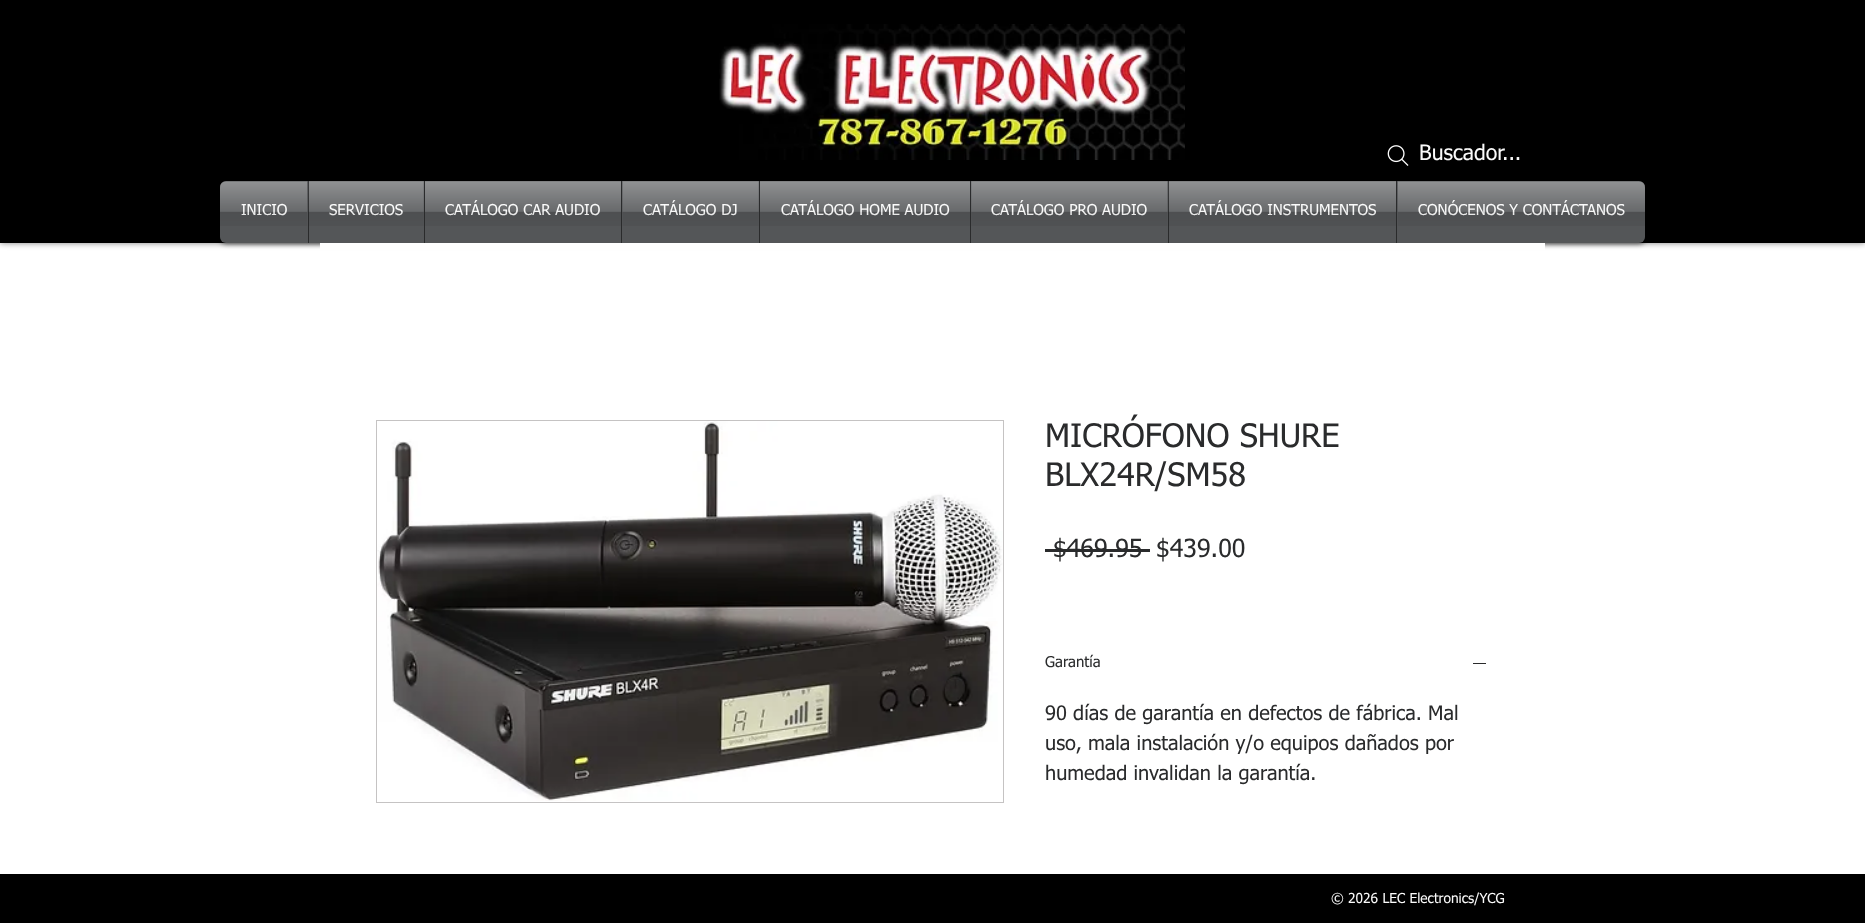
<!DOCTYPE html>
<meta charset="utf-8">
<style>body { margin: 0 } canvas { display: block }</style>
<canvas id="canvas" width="1865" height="923"></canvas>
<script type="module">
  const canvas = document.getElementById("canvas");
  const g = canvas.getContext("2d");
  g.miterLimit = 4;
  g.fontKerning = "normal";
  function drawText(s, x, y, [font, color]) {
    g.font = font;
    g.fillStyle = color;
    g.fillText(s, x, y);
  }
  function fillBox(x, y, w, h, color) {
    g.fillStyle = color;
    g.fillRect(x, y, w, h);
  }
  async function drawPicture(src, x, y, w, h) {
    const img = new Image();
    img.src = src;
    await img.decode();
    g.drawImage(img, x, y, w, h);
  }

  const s1 = ["21.25px tahoma", "#FAFAFA"];
  const s2 = ["15px tahoma", "#FAFAFA"];
  const s3 = ["32.5px tahoma", "#2A2B2C"];
  const s4 = ["25px tahoma", "#2A2B2C"];
  const s5 = ["15px tahoma", "#2A2B2C"];
  const s6 = ["20px tahoma", "#2A2B2C"];
  const s7 = ["13.75px tahoma", "#FAFAFA"];

  fillBox(0, 0, 1865, 923, "#FFFFFF");
  g.fillStyle = "rgba(0, 0, 0, 0.5)";
  g.filter = "blur(3px)";
  g.beginPath();
  g.rect(0, 0, 1865, 243);
  g.fill();
  g.filter = "none";
  fillBox(0, 0, 1865, 243, "#000000");
  await drawPicture("pic1.png", 719, 24, 466, 136);
  await drawPicture("pic2.png", 1387, 145, 22, 21);
  drawText("Buscador...", 1419, 160, s1);
  g.fillStyle = "rgba(0, 0, 0, 0.6)";
  g.filter = "blur(2.5px)";
  g.beginPath();
  g.roundRect(220, 183, 1425, 61, 6);
  g.fill();
  g.filter = "none";
  await drawPicture("pic3.png", 220, 181, 1425, 6);
  g.fillStyle = "#545658";
  g.beginPath();
  g.roundRect(220, 181, 88, 62, [6, 0, 0, 6]);
  g.fill();
  drawText("INICIO", 241, 215, s2);
  await drawPicture("pic4.png", 220, 181, 88, 45);
  fillBox(309, 181, 115, 62, "#545658");
  fillBox(308, 181, 1, 62, "#2A2B2C");
  drawText("SERVICIOS", 329, 215, s2);
  await drawPicture("pic5.png", 308, 181, 116, 45);
  fillBox(425, 181, 196, 62, "#545658");
  fillBox(424, 181, 1, 62, "#2A2B2C");
  drawText("CATÁLOGO CAR AUDIO", 445, 215, s2);
  await drawPicture("pic6.png", 425, 181, 196, 45);
  fillBox(622, 181, 137, 62, "#545658");
  fillBox(621, 181, 1, 62, "#2A2B2C");
  drawText("CATÁLOGO DJ", 643, 215, s2);
  await drawPicture("pic7.png", 622, 181, 137, 45);
  fillBox(760, 181, 210, 62, "#545658");
  fillBox(759, 181, 1, 62, "#2A2B2C");
  drawText("CATÁLOGO HOME AUDIO", 781, 215, s2);
  await drawPicture("pic8.png", 760, 181, 210, 45);
  fillBox(971, 181, 197, 62, "#545658");
  fillBox(970, 181, 1, 62, "#2A2B2C");
  drawText("CATÁLOGO PRO AUDIO", 991, 215, s2);
  await drawPicture("pic9.png", 971, 181, 197, 45);
  fillBox(1169, 181, 227, 62, "#545658");
  fillBox(1168, 181, 1, 62, "#2A2B2C");
  drawText("CATÁLOGO INSTRUMENTOS", 1189, 215, s2);
  await drawPicture("pic10.png", 1168, 181, 228, 45);
  g.fillStyle = "#545658";
  g.beginPath();
  g.roundRect(1396, 181, 249, 62, [0, 6, 6, 0]);
  g.fill();
  fillBox(1396, 181, 1, 62, "#2A2B2C");
  drawText("CONÓCENOS Y CONTÁCTANOS", 1418, 215, s2);
  await drawPicture("pic11.png", 1397, 181, 248, 45);
  fillBox(320, 243, 1225, 7, "#FFFFFF");
  g.strokeStyle = "#C5C3C3";
  g.strokeRect(376.5, 420.5, 627, 382);
  await drawPicture("pic12.png", 377, 421, 626, 380);
  drawText("MICRÓFONO SHURE", 1045, 447, s3);
  drawText("BLX24R/SM58", 1045, 486, s3);
  drawText("$469.95", 1053, 557, s4);
  fillBox(1045, 549, 105, 3, "#2A2B2C");
  drawText("$439.00", 1156, 557, s4);
  drawText("Garantía", 1045, 667, s5);
  fillBox(1473, 663, 13, 1, "#2A2B2C");
  drawText("90 días de garantía en defectos de fábrica. Mal", 1045, 720, s6);
  drawText("uso, mala instalación y/o equipos dañados por", 1045, 750, s6);
  drawText("humedad invalidan la garantía.", 1045, 780, s6);
  fillBox(0, 874, 1865, 49, "#000000");
  drawText("© 2026 LEC Electronics/YCG", 1331, 903, s7);
</script>
